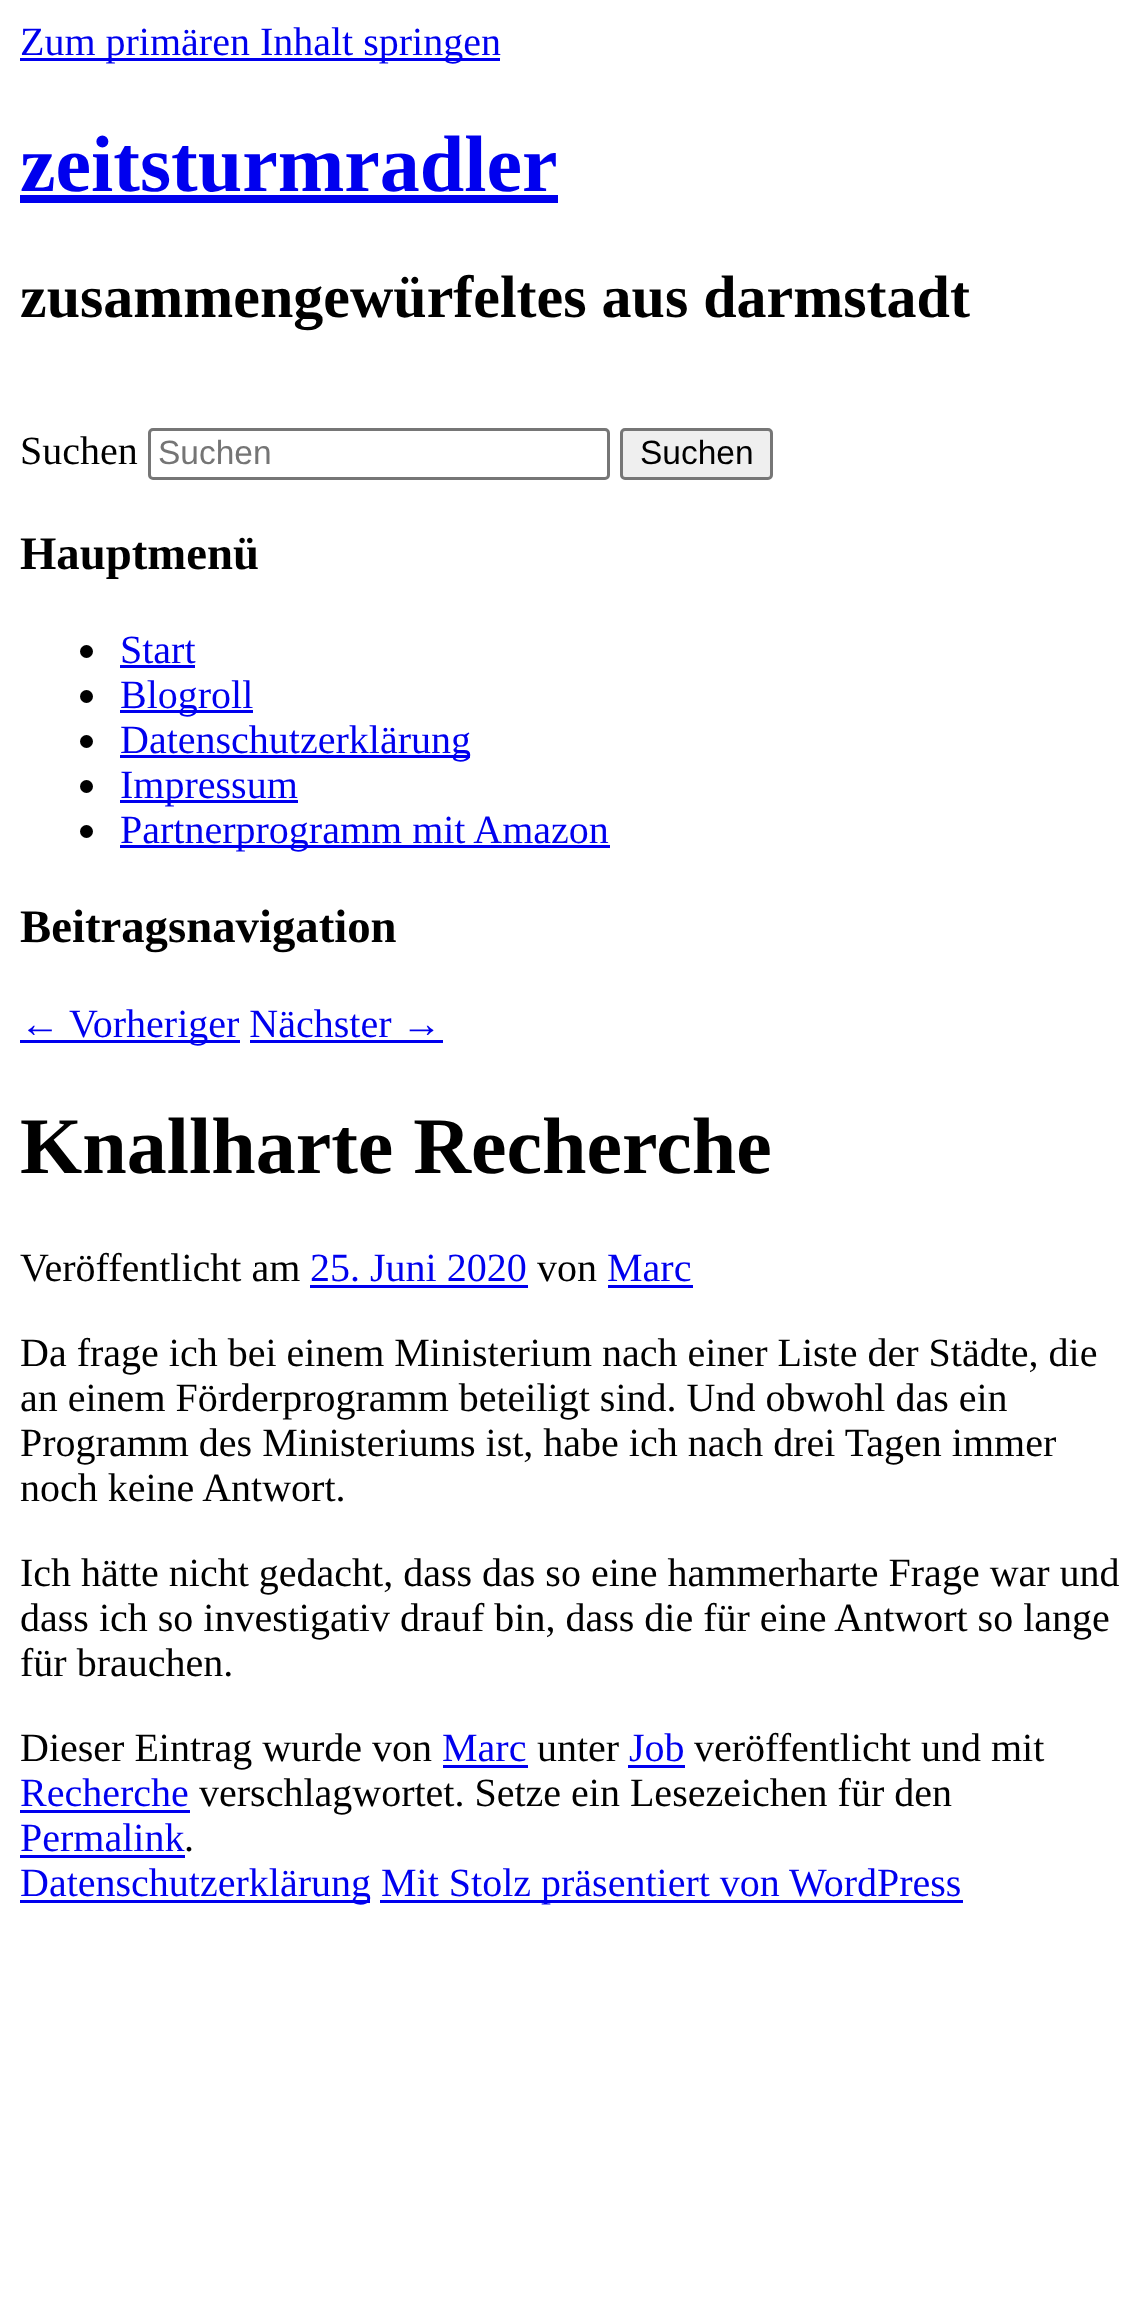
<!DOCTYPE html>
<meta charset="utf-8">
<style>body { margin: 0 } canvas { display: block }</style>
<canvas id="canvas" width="1148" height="2310"></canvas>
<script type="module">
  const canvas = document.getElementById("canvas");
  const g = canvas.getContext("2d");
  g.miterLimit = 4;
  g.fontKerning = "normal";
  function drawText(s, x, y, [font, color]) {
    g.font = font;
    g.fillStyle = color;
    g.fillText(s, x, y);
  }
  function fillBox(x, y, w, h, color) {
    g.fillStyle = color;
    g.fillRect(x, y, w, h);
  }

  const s1 = ["40px Liberation Serif", "#0000EE"];
  const s2 = ["bold 80px Liberation Serif", "#0000EE"];
  const s3 = ["bold 60px Liberation Serif", "#000000"];
  const s4 = ["40px Liberation Serif", "#000000"];
  const s5 = ["33.5px Liberation Sans", "#757575"];
  const s6 = ["33.5px Liberation Sans", "#000000"];
  const s7 = ["bold 46.75px Liberation Serif", "#000000"];
  const s8 = ["bold 80px Liberation Serif", "#000000"];

  fillBox(0, 0, 1148, 2310, "#FFFFFF");
  fillBox(20, 58, 480, 3, "#0000EE");
  drawText("Zum primären Inhalt springen", 20, 55, s1);
  drawText("zeitsturmradler", 20, 191, s2);
  fillBox(20, 195, 538, 8, "#0000EE");
  drawText("zusammengewürfeltes aus darmstadt", 20, 317, s3);
  drawText("Suchen", 20, 464, s4);
  g.beginPath();
  g.roundRect(149.5, 429.5, 459, 49, 3.5);
  g.strokeStyle = "#767676";
  g.lineWidth = 3;
  g.stroke();
  drawText("Suchen", 158, 464, s5);
  g.fillStyle = "#EFEFEF";
  g.beginPath();
  g.roundRect(621.5, 429.5, 150, 49, 3.5);
  g.fill();
  g.stroke();
  drawText("Suchen", 640, 464, s6);
  drawText("Hauptmenü", 20, 569, s7);
  g.beginPath();
  g.arc(86.5, 651.5, 6.5, 0, Math.PI * 2);
  g.fill();
  drawText("Start", 120, 663, s1);
  fillBox(120, 665, 75, 3, "#0000EE");
  g.fillStyle = "#000000";
  g.beginPath();
  g.arc(86.5, 696.5, 6.5, 0, Math.PI * 2);
  g.fill();
  fillBox(120, 710, 133, 3, "#0000EE");
  drawText("Blogroll", 120, 708, s1);
  g.fillStyle = "#000000";
  g.beginPath();
  g.arc(86.5, 741.5, 6.5, 0, Math.PI * 2);
  g.fill();
  fillBox(120, 755, 350, 3, "#0000EE");
  drawText("Datenschutzerklärung", 120, 753, s1);
  g.fillStyle = "#000000";
  g.beginPath();
  g.arc(86.5, 786.5, 6.5, 0, Math.PI * 2);
  g.fill();
  fillBox(120, 800, 178, 3, "#0000EE");
  drawText("Impressum", 120, 798, s1);
  g.fillStyle = "#000000";
  g.beginPath();
  g.arc(86.5, 831.5, 6.5, 0, Math.PI * 2);
  g.fill();
  fillBox(120, 845, 490, 3, "#0000EE");
  drawText("Partnerprogramm mit Amazon", 120, 843, s1);
  drawText("Beitragsnavigation", 20, 942, s7);
  drawText("←", 20, 1037, s1);
  fillBox(20, 1040, 220, 3, "#0000EE");
  drawText("Vorheriger Nächster →", 69, 1037, s1);
  fillBox(250, 1040, 193, 3, "#0000EE");
  drawText("Knallharte Recherche", 20, 1173, s8);
  drawText("Veröffentlicht am", 20, 1281, s4);
  drawText("25. Juni 2020", 310, 1281, s1);
  fillBox(310, 1285, 218, 3, "#0000EE");
  drawText("von", 537, 1281, s4);
  drawText("Marc", 607, 1281, s1);
  fillBox(608, 1285, 85, 3, "#0000EE");
  drawText("Da frage ich bei einem Ministerium nach einer Liste der Städte, die", 20, 1366, s4);
  drawText("an einem Förderprogramm beteiligt sind. Und obwohl das ein", 20, 1411, s4);
  drawText("Programm des Ministeriums ist, habe ich nach drei Tagen immer", 20, 1456, s4);
  drawText("noch keine Antwort.", 20, 1501, s4);
  drawText("Ich hätte nicht gedacht, dass das so eine hammerharte Frage war und", 20, 1586, s4);
  drawText("dass ich so investigativ drauf bin, dass die für eine Antwort so lange", 20, 1631, s4);
  drawText("für brauchen.", 20, 1676, s4);
  drawText("Dieser Eintrag wurde von", 20, 1761, s4);
  drawText("Marc", 442, 1761, s1);
  fillBox(443, 1765, 85, 3, "#0000EE");
  drawText("unter", 537, 1761, s4);
  drawText("Job", 629, 1761, s1);
  fillBox(628, 1765, 57, 3, "#0000EE");
  drawText("veröffentlicht und mit", 694, 1761, s4);
  drawText("Recherche", 20, 1806, s1);
  fillBox(20, 1810, 170, 3, "#0000EE");
  drawText("verschlagwortet. Setze ein Lesezeichen für den", 199, 1806, s4);
  drawText("Permalink", 20, 1851, s1);
  fillBox(20, 1855, 165, 3, "#0000EE");
  drawText(".", 184, 1851, s4);
  fillBox(20, 1900, 350, 3, "#0000EE");
  drawText("Datenschutzerklärung", 20, 1896, s1);
  fillBox(380, 1900, 583, 3, "#0000EE");
  drawText("Mit Stolz präsentiert von WordPress", 381, 1896, s1);
</script>
